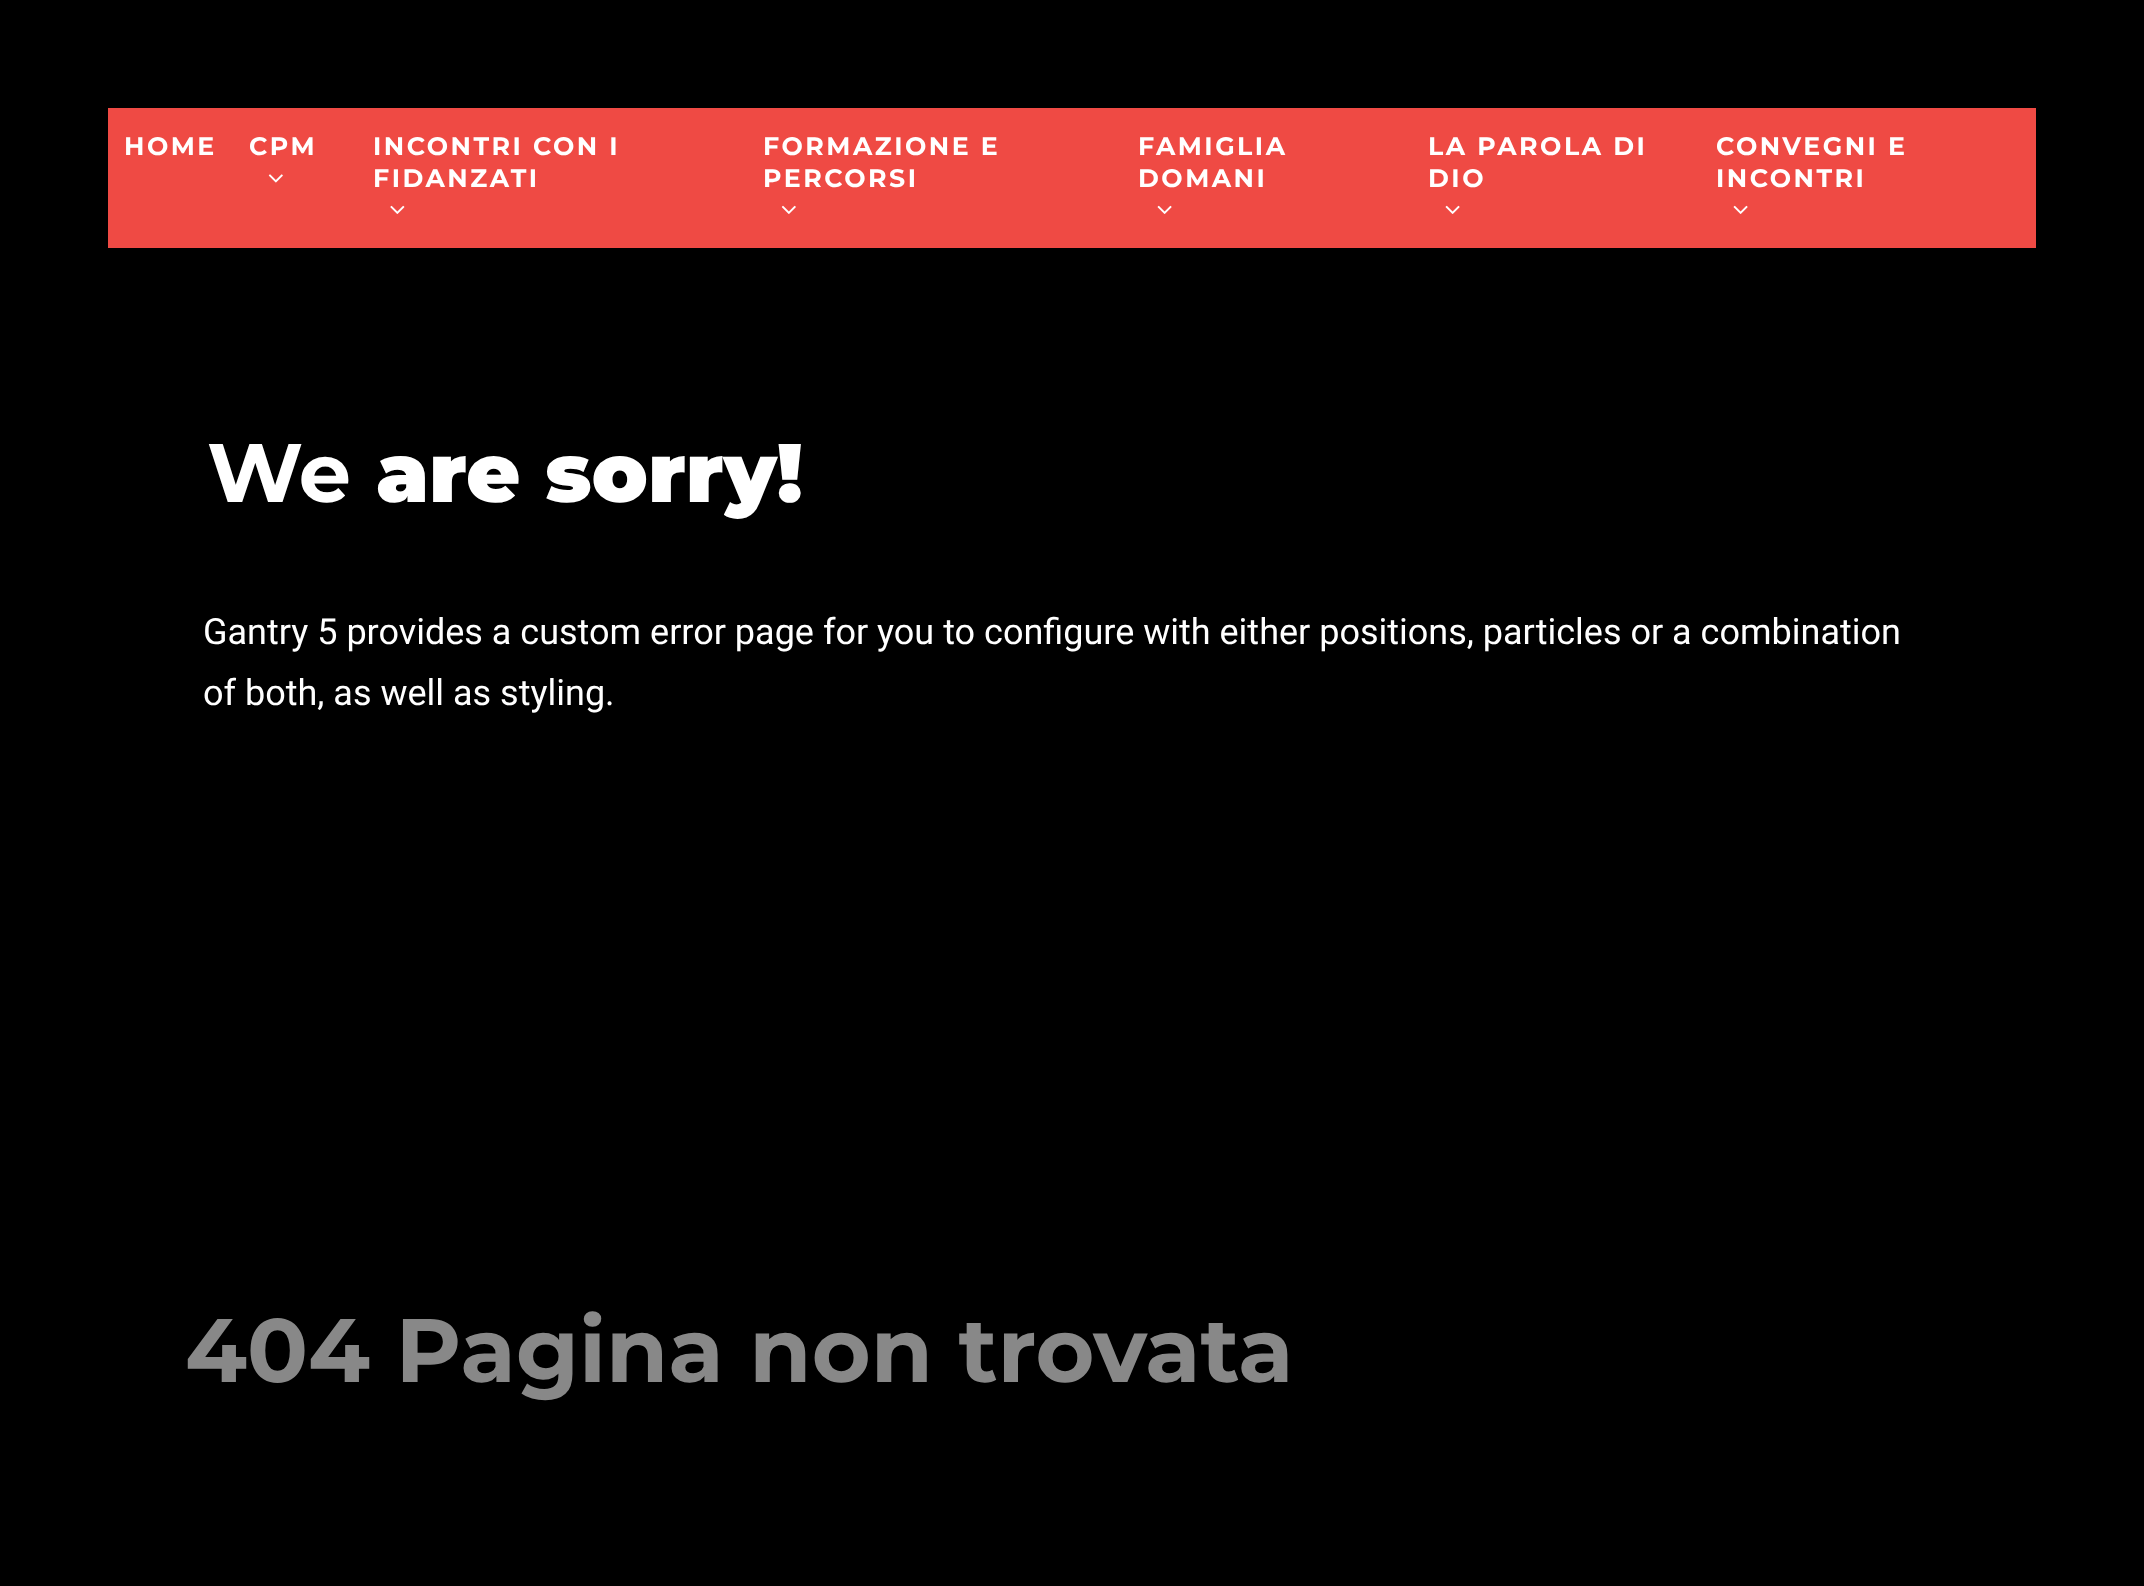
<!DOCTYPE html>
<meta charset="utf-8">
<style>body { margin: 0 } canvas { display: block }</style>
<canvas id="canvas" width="2144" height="1586"></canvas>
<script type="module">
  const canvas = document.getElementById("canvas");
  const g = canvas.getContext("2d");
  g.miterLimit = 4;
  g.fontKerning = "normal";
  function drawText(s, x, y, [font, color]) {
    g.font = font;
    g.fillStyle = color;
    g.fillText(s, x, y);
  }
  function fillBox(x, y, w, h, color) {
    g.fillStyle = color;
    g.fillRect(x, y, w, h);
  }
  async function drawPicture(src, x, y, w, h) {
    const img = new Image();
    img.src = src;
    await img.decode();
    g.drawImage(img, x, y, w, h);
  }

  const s1 = ["bold 25.25px Montserrat", "#FFFFFF"];
  const s2 = ["bold 82.75px Montserrat", "#FFFFFF"];
  const s3 = ["900 82.75px Montserrat", "#FFFFFF"];
  const s4 = ["36px Roboto", "#FFFFFF"];
  const s5 = ["bold 90px Montserrat", "#888888"];

  fillBox(0, 0, 2144, 1586, "#000000");
  fillBox(108, 108, 1928, 140, "#EF4A44");
  g.letterSpacing = "2.5px";
  drawText("HOME", 124, 155, s1);
  drawText("CPM", 249, 155, s1);
  await drawPicture("pic1.png", 268, 174, 15, 9);
  drawText("INCONTRI CON I", 373, 155, s1);
  drawText("FIDANZATI", 373, 187, s1);
  await drawPicture("pic2.png", 390, 205, 15, 9);
  drawText("FORMAZIONE E", 763, 155, s1);
  drawText("PERCORSI", 763, 187, s1);
  await drawPicture("pic3.png", 781, 205, 15, 9);
  drawText("FAMIGLIA", 1138, 155, s1);
  drawText("DOMANI", 1138, 187, s1);
  await drawPicture("pic4.png", 1157, 205, 15, 9);
  drawText("LA PAROLA DI", 1428, 155, s1);
  drawText("DIO", 1428, 187, s1);
  await drawPicture("pic4.png", 1445, 205, 15, 9);
  drawText("CONVEGNI E", 1716, 155, s1);
  drawText("INCONTRI", 1716, 187, s1);
  await drawPicture("pic4.png", 1733, 205, 15, 9);
  g.letterSpacing = "0px";
  drawText("We", 207, 502, s2);
  drawText("are sorry!", 376, 502, s3);
  drawText("Gantry 5 provides a custom error page for you to configure with either positions, particles or a combination", 203, 644, s4);
  drawText("of both, as well as styling.", 203, 705, s4);
  drawText("404 Pagina non trovata", 185, 1382, s5);
</script>
